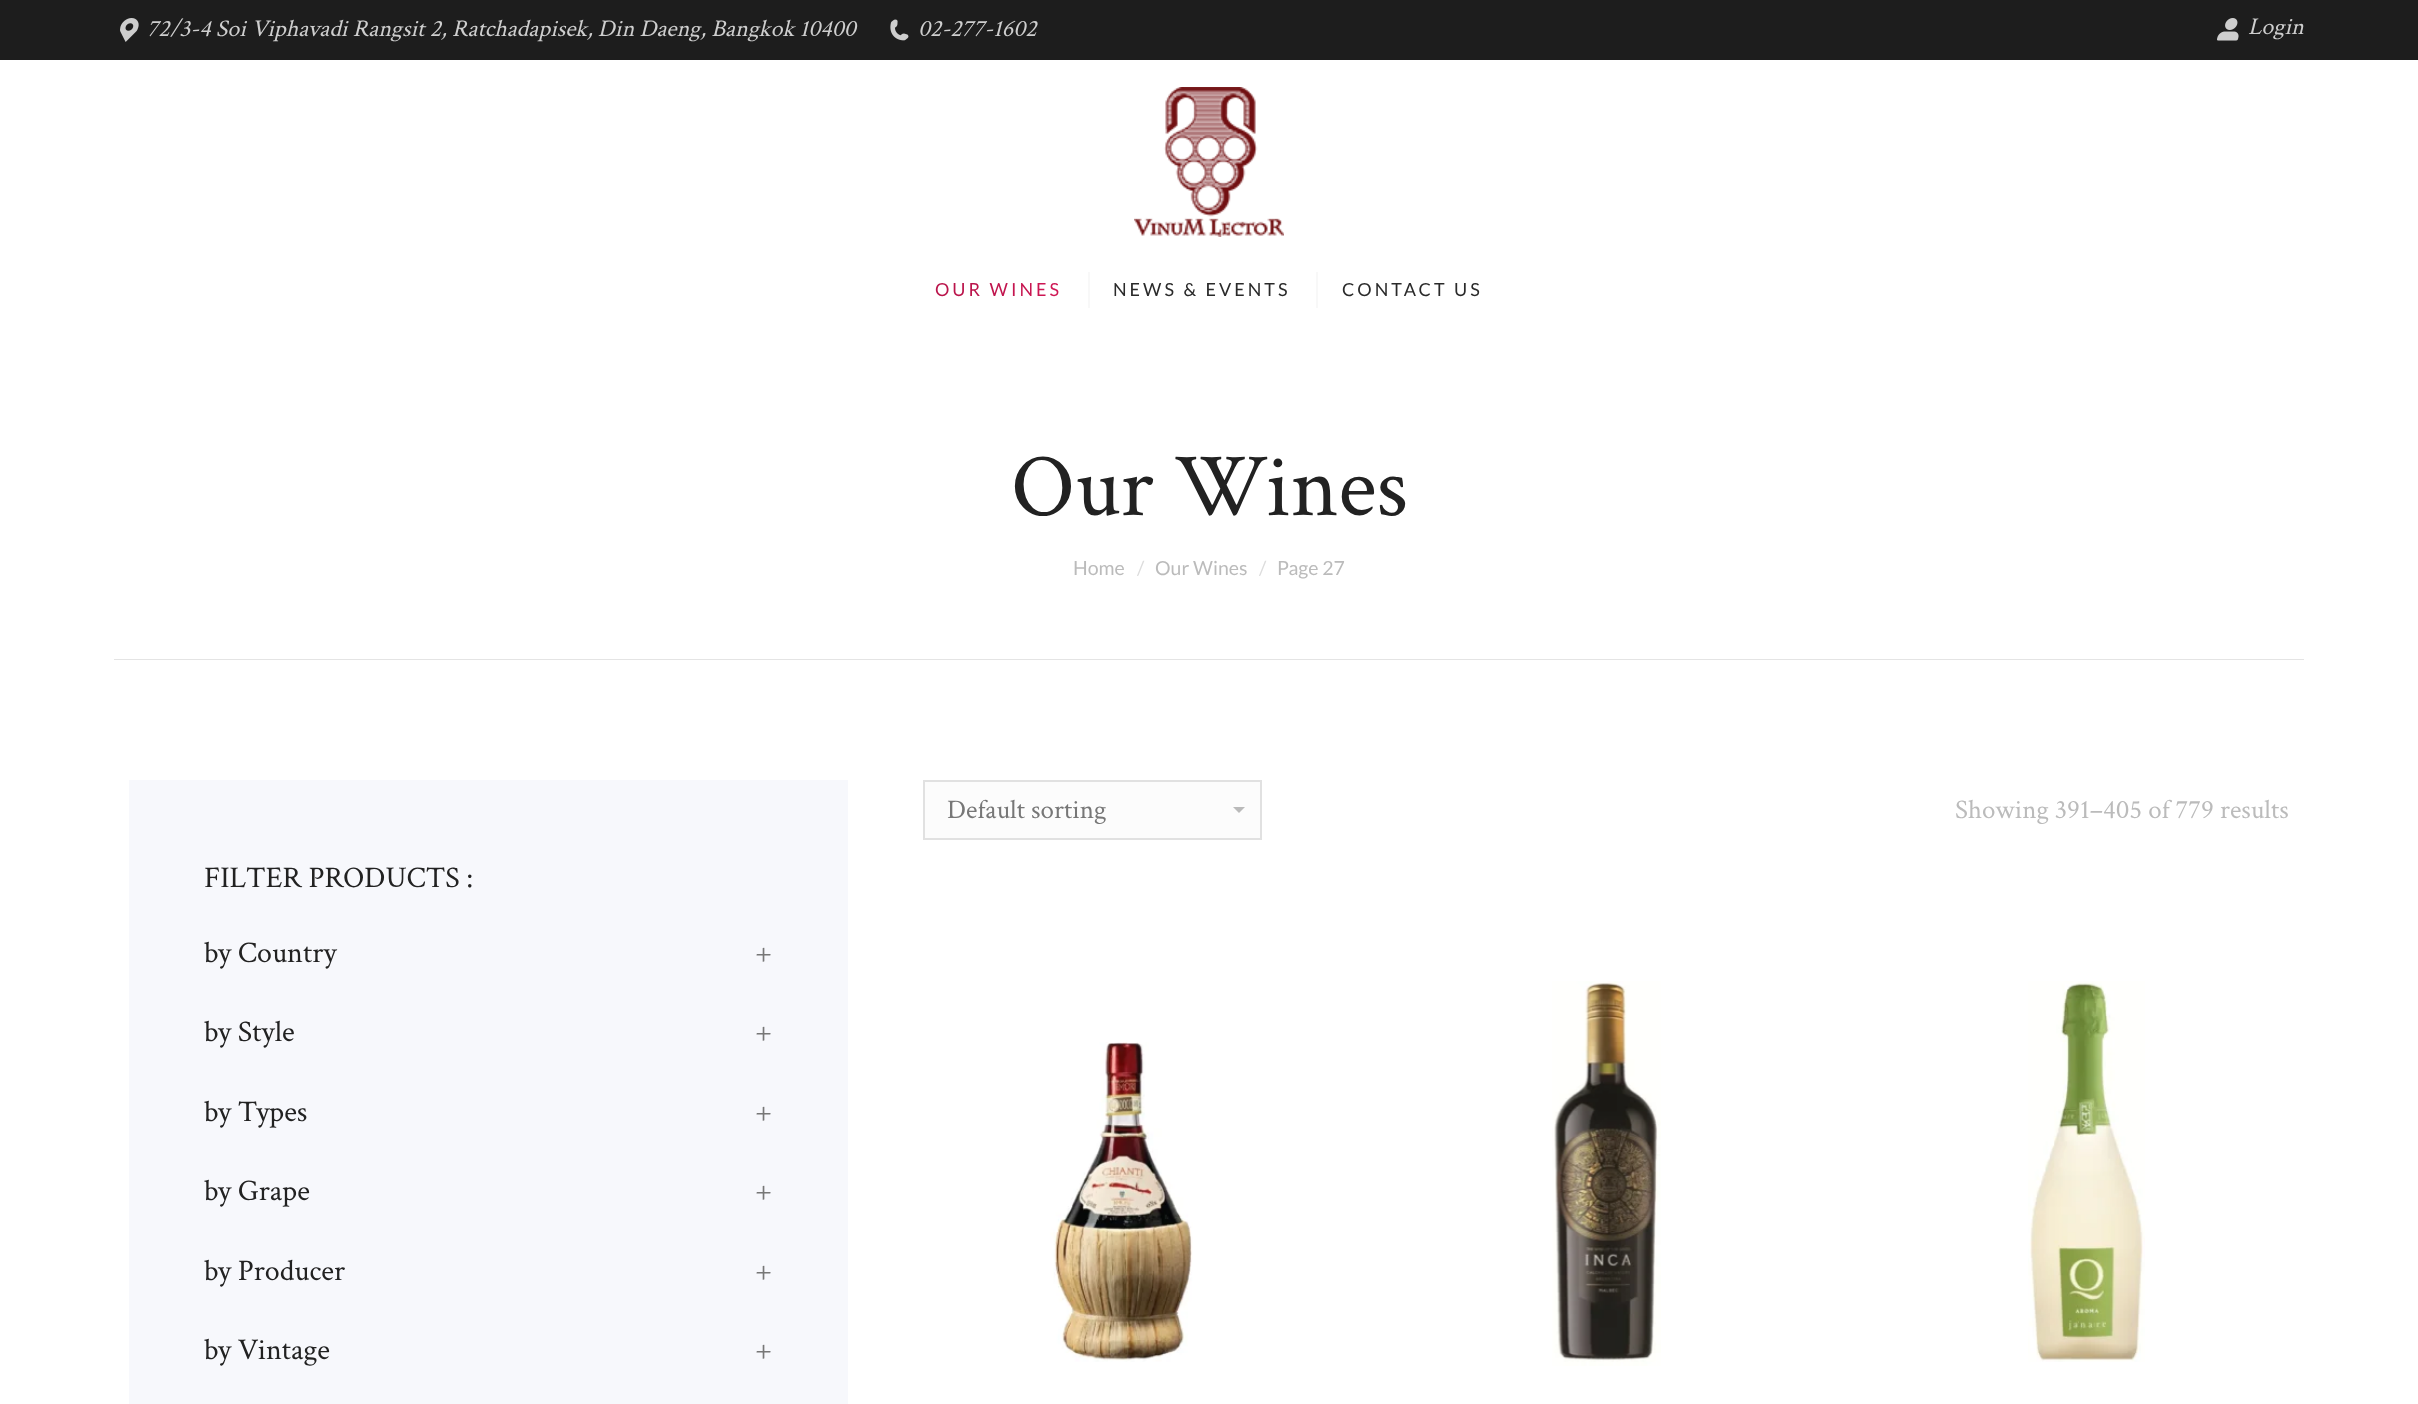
<!DOCTYPE html>
<meta charset="utf-8">
<style>body { margin: 0 } canvas { display: block }</style>
<canvas id="canvas" width="2418" height="1404"></canvas>
<script type="module">
  const canvas = document.getElementById("canvas");
  const g = canvas.getContext("2d");
  g.miterLimit = 4;
  g.fontKerning = "normal";
  function drawText(s, x, y, [font, color]) {
    g.font = font;
    g.fillStyle = color;
    g.fillText(s, x, y);
  }
  function fillBox(x, y, w, h, color) {
    g.fillStyle = color;
    g.fillRect(x, y, w, h);
  }
  async function drawPicture(src, x, y, w, h) {
    const img = new Image();
    img.src = src;
    await img.decode();
    g.drawImage(img, x, y, w, h);
  }
  let gradient;

  const s1 = ["italic 24px Crimson Text", "#CECECE"];
  const s2 = ["18px Lato", "#2A2A2A"];
  const s3 = ["90px Crimson Text", "#222222"];
  const s4 = ["19.5px Lato", "#BBBBBB"];
  const s5 = ["19.5px Lato", "#DDDDDD"];
  const s6 = ["27px Crimson Text", "#777777"];
  const s7 = ["27px Crimson Text", "#BBBBBB"];
  const s8 = ["30px Crimson Text", "#222222"];
  const s9 = ["30px Crimson Text", "#777777"];

  fillBox(0, 0, 2418, 1404, "#FFFFFF");
  fillBox(0, 0, 2418, 60, "#1D1D1D");
  await drawPicture("pic1.png", 120, 18, 19, 24);
  drawText("72/3-4 Soi Viphavadi Rangsit 2, Ratchadapisek, Din Daeng, Bangkok 10400", 147, 36, s1);
  await drawPicture("pic2.png", 890, 19, 19, 22);
  drawText("02-277-1602", 918, 36, s1);
  await drawPicture("pic3.png", 2217, 18, 22, 23);
  drawText("Login", 2248, 34, s1);
  await drawPicture("pic4.png", 1134, 87, 150, 150);
  g.letterSpacing = "3px";
  g.font = "18px Lato";
  gradient = g.createLinearGradient(935, 290, 1062, 290);
  gradient.addColorStop(0.3, "#BA144B");
  gradient.addColorStop(1, "#D11755");
  g.fillStyle = gradient;
  g.fillText("OUR WINES", 935, 296);
  fillBox(1088, 272, 2, 36, "#F8F8F8");
  drawText("NEWS & EVENTS", 1113, 296, s2);
  fillBox(1316, 272, 2, 36, "#F8F8F8");
  drawText("CONTACT US", 1342, 296, s2);
  g.letterSpacing = "0px";
  drawText("Our Wines", 1011, 515, s3);
  drawText("Home", 1073, 575, s4);
  drawText("/", 1137, 575, s5);
  drawText("Our Wines", 1155, 575, s4);
  drawText("/", 1259, 575, s5);
  drawText("Page 27", 1277, 575, s4);
  fillBox(114, 659, 2190, 1, "#E4E4E4");
  fillBox(925, 782, 335, 56, "#FCFCFC");
  g.fillStyle = "#BABABA";
  g.beginPath();
  g.moveTo(1233, 807);
  g.lineTo(1239, 813);
  g.lineTo(1245, 807);
  g.closePath();
  g.fill();
  g.strokeStyle = "#E1E1E1";
  g.lineWidth = 2;
  g.strokeRect(924, 781, 337, 58);
  drawText("Default sorting", 947, 818, s6);
  drawText("Showing 391–405 of 779 results", 1955, 818, s7);
  await drawPicture("pic5.png", 1050, 1042, 143, 320);
  await drawPicture("pic6.png", 1552, 981, 109, 385);
  await drawPicture("pic7.png", 2028, 981, 117, 381);
  fillBox(129, 780, 719, 624, "#F7F8FC");
  drawText("FILTER PRODUCTS :", 204, 887, s8);
  drawText("by Country", 204, 962, s8);
  drawText("+", 755, 962, s9);
  drawText("by Style", 204, 1041, s8);
  drawText("+", 755, 1041, s9);
  drawText("by Types", 204, 1121, s8);
  drawText("+", 755, 1121, s9);
  drawText("by Grape", 204, 1200, s8);
  drawText("+", 755, 1200, s9);
  drawText("by Producer", 204, 1280, s8);
  drawText("+", 755, 1280, s9);
  drawText("by Vintage", 204, 1359, s8);
  drawText("+", 755, 1359, s9);
</script>
